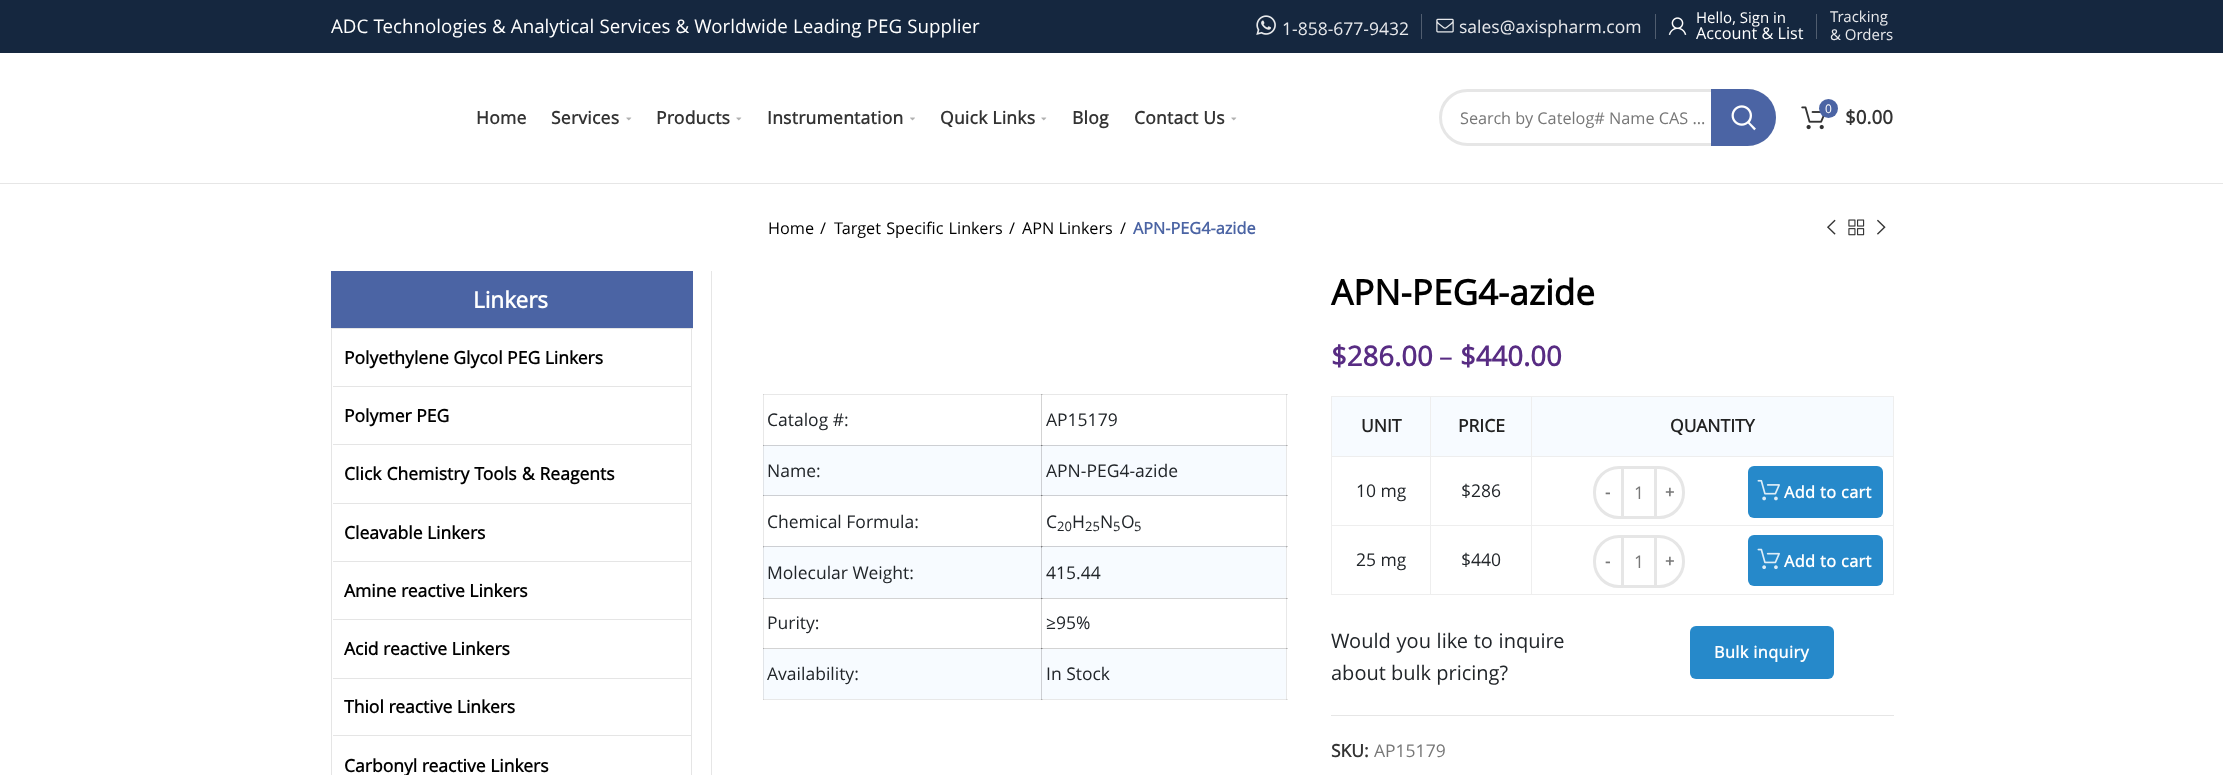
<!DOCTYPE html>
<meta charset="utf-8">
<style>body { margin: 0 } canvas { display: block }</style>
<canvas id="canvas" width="2223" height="775"></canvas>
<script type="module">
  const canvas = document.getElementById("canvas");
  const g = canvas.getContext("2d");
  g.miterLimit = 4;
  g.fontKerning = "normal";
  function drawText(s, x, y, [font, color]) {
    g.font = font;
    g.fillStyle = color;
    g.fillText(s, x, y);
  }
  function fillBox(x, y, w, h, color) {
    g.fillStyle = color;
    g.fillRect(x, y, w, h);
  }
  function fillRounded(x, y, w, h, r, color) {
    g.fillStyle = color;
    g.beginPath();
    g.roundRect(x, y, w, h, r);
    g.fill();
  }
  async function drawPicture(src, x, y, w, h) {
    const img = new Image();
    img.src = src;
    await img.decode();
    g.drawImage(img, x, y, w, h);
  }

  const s1 = ["18.75px Open Sans", "#FFFFFF"];
  const s2 = ["17.5px Open Sans", "#E8E9EC"];
  const s3 = ["15px Open Sans", "#FFFFFF"];
  const s4 = ["16.25px Open Sans", "#FFFFFF"];
  const s5 = ["15px Open Sans", "#E8E9EC"];
  const s6 = ["bold 17.5px Open Sans", "#333333"];
  const s7 = ["16.25px Open Sans", "#777777"];
  const s8 = ["12px Open Sans", "#FFFFFF"];
  const s9 = ["bold 18.75px Open Sans", "#333333"];
  const s10 = ["16.25px Open Sans", "#000000"];
  const s11 = ["bold 16.25px Open Sans", "#4B64A4"];
  const s12 = ["bold 22.5px Open Sans", "#FFFFFF"];
  const s13 = ["bold 17.5px Open Sans", "#000000"];
  const s14 = ["17.5px Open Sans", "#212529"];
  const s15 = ["13px Open Sans", "#212529"];
  const s16 = ["bold 35px Open Sans", "#000000"];
  const s17 = ["bold 27.5px Open Sans", "#582C83"];
  const s18 = ["27.5px Open Sans", "#582C83"];
  const s19 = ["bold 17.5px Open Sans", "#222222"];
  const s20 = ["bold 16.25px Open Sans", "#777777"];
  const s21 = ["17.5px Open Sans", "#777777"];
  const s22 = ["bold 16.25px Open Sans", "#FFFFFF"];
  const s23 = ["20px Open Sans", "#212529"];

  fillBox(0, 0, 2223, 775, "#FFFFFF");
  fillBox(763, 394, 1, 52, "#E8E8E8");
  fillBox(763, 394, 280, 1, "#E8E8E8");
  fillBox(763, 394, 1, 1, "#D3D3D3");
  fillBox(1041, 394, 1, 52, "#D3D3D3");
  fillBox(1286, 394, 1, 255, "#E8E8E8");
  fillBox(1287, 445, 1, 1, "#D3D3D3");
  fillBox(1286, 445, 1, 1, "#AFAFAF");
  fillBox(763, 495, 1, 53, "#E8E8E8");
  fillBox(1041, 495, 1, 53, "#D3D3D3");
  fillBox(1287, 495, 1, 1, "#D3D3D3");
  fillBox(1286, 495, 1, 1, "#AFAFAF");
  fillBox(1286, 546, 1, 2, "#D3D3D3");
  fillBox(1287, 546, 1, 1, "#D3D3D3");
  fillBox(1286, 546, 1, 1, "#AFAFAF");
  fillBox(763, 598, 1, 51, "#E8E8E8");
  fillBox(763, 598, 280, 1, "#D3D3D3");
  fillBox(763, 598, 1, 1, "#AFAFAF");
  fillBox(1041, 598, 1, 51, "#D3D3D3");
  fillBox(763, 699, 525, 1, "#E8E8E8");
  fillBox(763, 699, 1, 1, "#D3D3D3");
  fillBox(763, 648, 280, 1, "#D3D3D3");
  fillBox(763, 648, 1, 1, "#AFAFAF");
  fillBox(1041, 699, 2, 1, "#D3D3D3");
  fillBox(1041, 699, 1, 1, "#AFAFAF");
  fillBox(1286, 648, 1, 52, "#E8E8E8");
  fillBox(1286, 699, 1, 1, "#D3D3D3");
  fillBox(0, 0, 2223, 53, "#15273F");
  g.wordSpacing = "0.25px";
  drawText("ADC Technologies & Analytical Services & Worldwide Leading PEG Supplier", 331, 33, s1);
  await drawPicture("pic1.png", 1256, 15, 20, 20);
  g.wordSpacing = "0px";
  drawText("1-858-677-9432", 1282, 35, s2);
  fillBox(1421, 14, 1, 25, "#505D6F");
  await drawPicture("pic2.png", 1436, 18, 18, 15);
  drawText("sales@axispharm.com", 1459, 33, s2);
  fillBox(1655, 14, 1, 25, "#505D6F");
  await drawPicture("pic3.png", 1668, 17, 19, 18);
  drawText("Hello, Sign in", 1696, 23, s3);
  drawText("Account & List", 1696, 39, s4);
  fillBox(1816, 14, 1, 25, "#505D6F");
  drawText("Tracking", 1830, 22, s5);
  drawText("& Orders", 1830, 40, s5);
  fillBox(0, 183, 2223, 1, "#E6E6E6");
  g.letterSpacing = "0.25px";
  drawText("Home", 476, 124, s6);
  drawText("Services", 551, 124, s6);
  await drawPicture("pic4.png", 626, 117, 6, 4);
  drawText("Products", 656, 124, s6);
  await drawPicture("pic4.png", 736, 117, 6, 4);
  drawText("Instrumentation", 767, 124, s6);
  await drawPicture("pic5.png", 910, 117, 5, 4);
  drawText("Quick Links", 940, 124, s6);
  await drawPicture("pic4.png", 1041, 117, 6, 4);
  drawText("Blog", 1072, 124, s6);
  drawText("Contact Us", 1134, 124, s6);
  await drawPicture("pic4.png", 1231, 117, 6, 4);
  g.beginPath();
  g.roundRect(1440.5, 90.5, 334, 54, 27);
  g.strokeStyle = "#E6E6E6";
  g.lineWidth = 3;
  g.stroke();
  g.letterSpacing = "0px";
  drawText("Search by Catelog# Name CAS ...", 1460, 124, s7);
  g.fillStyle = "#4B64A4";
  g.beginPath();
  g.roundRect(1711, 89, 65, 57, [0, 28.5, 28.5, 0]);
  g.fill();
  await drawPicture("pic6.png", 1731, 105, 25, 26);
  await drawPicture("pic7.png", 1801, 106, 24, 24);
  g.beginPath();
  g.arc(1828.5, 108.5, 9.5, 0, Math.PI * 2);
  g.fill();
  drawText("0", 1825, 113, s8);
  drawText("$0.00", 1845, 124, s9);
  drawText("Home", 768, 234, s10);
  drawText("/", 820, 234, s10);
  g.wordSpacing = "1px";
  drawText("Target Specific Linkers", 834, 234, s10);
  g.wordSpacing = "0px";
  drawText("/", 1009, 234, s10);
  drawText("APN Linkers", 1022, 234, s10);
  drawText("/", 1120, 234, s10);
  drawText("APN-PEG4-azide", 1133, 234, s11);
  await drawPicture("pic8.png", 1827, 219, 9, 16);
  await drawPicture("pic9.png", 1848, 219, 17, 17);
  await drawPicture("pic10.png", 1877, 219, 9, 16);
  fillBox(711, 271, 1, 504, "#E6E6E6");
  fillBox(331, 271, 362, 57, "#4B64A4");
  drawText("Linkers", 473, 308, s12);
  fillBox(331, 328, 362, 1, "#E5E5E5");
  fillBox(691, 328, 1, 447, "#E5E5E5");
  fillBox(331, 328, 1, 447, "#E5E5E5");
  fillBox(333, 386, 358, 1, "#E5E5E5");
  drawText("Polyethylene Glycol PEG Linkers", 344, 364, s13);
  fillBox(333, 444, 358, 1, "#E5E5E5");
  drawText("Polymer PEG", 344, 422, s13);
  fillBox(333, 503, 358, 1, "#E5E5E5");
  g.wordSpacing = "0.5px";
  drawText("Click Chemistry Tools & Reagents", 344, 480, s13);
  fillBox(333, 561, 358, 1, "#E5E5E5");
  g.wordSpacing = "0px";
  drawText("Cleavable Linkers", 344, 539, s13);
  fillBox(333, 619, 358, 1, "#E5E5E5");
  drawText("Amine reactive Linkers", 344, 597, s13);
  fillBox(333, 678, 358, 1, "#E5E5E5");
  drawText("Acid reactive Linkers", 344, 655, s13);
  fillBox(333, 735, 358, 1, "#E5E5E5");
  drawText("Thiol reactive Linkers", 344, 713, s13);
  drawText("Carbonyl reactive Linkers", 344, 772, s13);
  drawText("Catalog #:", 767, 426, s14);
  fillBox(1041, 394, 247, 1, "#E8E8E8");
  fillBox(1041, 394, 2, 1, "#D3D3D3");
  fillBox(1041, 394, 1, 1, "#AFAFAF");
  fillBox(1286, 394, 1, 1, "#D3D3D3");
  drawText("AP15179", 1046, 426, s14);
  fillBox(764, 446, 277, 49, "#F7FBFF");
  fillBox(763, 445, 1, 51, "#E1E4E8");
  fillBox(763, 445, 278, 1, "#CDCFD3");
  fillBox(763, 445, 1, 1, "#ABACAF");
  fillBox(763, 495, 278, 1, "#CDCFD3");
  fillBox(763, 495, 1, 1, "#ABACAF");
  drawText("Name:", 767, 477, s14);
  fillBox(1042, 446, 244, 49, "#F7FBFF");
  fillBox(1041, 445, 1, 51, "#CDCFD3");
  fillBox(1041, 445, 245, 1, "#CDCFD3");
  fillBox(1041, 445, 2, 1, "#ABACAF");
  fillBox(1041, 445, 1, 1, "#78797B");
  fillBox(1041, 495, 245, 1, "#CDCFD3");
  fillBox(1041, 495, 2, 1, "#ABACAF");
  fillBox(1041, 495, 1, 1, "#78797B");
  drawText("APN-PEG4-azide", 1046, 477, s14);
  drawText("Chemical Formula:", 767, 528, s14);
  drawText("C", 1046, 528, s14);
  drawText("20", 1057, 531, s15);
  drawText("H", 1072, 528, s14);
  drawText("25", 1085, 531, s15);
  drawText("N", 1100, 528, s14);
  drawText("5", 1113, 531, s15);
  drawText("O", 1121, 528, s14);
  drawText("5", 1134, 531, s15);
  fillBox(764, 547, 277, 51, "#F7FBFF");
  fillBox(763, 546, 1, 52, "#E1E4E8");
  fillBox(763, 546, 1, 2, "#CDCFD3");
  fillBox(763, 546, 278, 1, "#CDCFD3");
  fillBox(763, 546, 1, 1, "#ABACAF");
  drawText("Molecular Weight:", 767, 579, s14);
  fillBox(1042, 547, 244, 51, "#F7FBFF");
  fillBox(1041, 546, 1, 52, "#CDCFD3");
  fillBox(1041, 546, 1, 2, "#ABACAF");
  fillBox(1041, 546, 245, 1, "#CDCFD3");
  fillBox(1041, 546, 2, 1, "#ABACAF");
  fillBox(1041, 546, 1, 1, "#78797B");
  drawText("415.44", 1046, 579, s14);
  drawText("Purity:", 767, 629, s14);
  fillBox(1041, 598, 247, 1, "#D3D3D3");
  fillBox(1041, 598, 2, 1, "#AFAFAF");
  fillBox(1041, 598, 1, 1, "#7B7B7B");
  fillBox(1286, 598, 1, 1, "#AFAFAF");
  drawText("≥95%", 1046, 629, s14);
  fillBox(764, 649, 277, 50, "#F7FBFF");
  fillBox(763, 649, 1, 50, "#E1E4E8");
  drawText("Availability:", 767, 680, s14);
  fillBox(1042, 649, 244, 50, "#F7FBFF");
  fillBox(1041, 649, 1, 50, "#CDCFD3");
  fillBox(1041, 648, 247, 1, "#D3D3D3");
  fillBox(1041, 648, 2, 1, "#AFAFAF");
  fillBox(1041, 648, 1, 1, "#7B7B7B");
  fillBox(1286, 648, 1, 1, "#AFAFAF");
  drawText("In Stock", 1046, 680, s14);
  drawText("APN-PEG4-azide", 1331, 305, s16);
  drawText("$286.00", 1331, 366, s17);
  drawText("–", 1439, 366, s18);
  drawText("$440.00", 1460, 366, s17);
  fillBox(1332, 397, 98, 59, "#F7FBFF");
  fillBox(1531, 396, 363, 1, "#EEEEEE");
  fillBox(1431, 397, 462, 59, "#F7FBFF");
  fillBox(1531, 456, 363, 1, "#EEEEEE");
  fillBox(1531, 525, 363, 1, "#EEEEEE");
  fillBox(1893, 525, 1, 70, "#EEEEEE");
  fillBox(1531, 594, 363, 1, "#EEEEEE");
  fillBox(1531, 525, 1, 70, "#EEEEEE");
  fillBox(1430, 525, 103, 1, "#EEEEEE");
  fillBox(1531, 456, 1, 70, "#EEEEEE");
  fillBox(1430, 456, 103, 1, "#EEEEEE");
  fillBox(1531, 396, 1, 62, "#EEEEEE");
  fillBox(1430, 396, 103, 1, "#EEEEEE");
  fillBox(1430, 594, 103, 1, "#EEEEEE");
  fillBox(1430, 525, 1, 70, "#EEEEEE");
  fillBox(1331, 525, 100, 1, "#EEEEEE");
  fillBox(1430, 456, 1, 70, "#EEEEEE");
  fillBox(1331, 456, 100, 1, "#EEEEEE");
  fillBox(1430, 396, 1, 62, "#EEEEEE");
  fillBox(1331, 396, 100, 1, "#EEEEEE");
  fillBox(1331, 594, 100, 1, "#EEEEEE");
  fillBox(1331, 525, 1, 70, "#EEEEEE");
  fillBox(1331, 456, 1, 70, "#EEEEEE");
  fillBox(1331, 396, 1, 62, "#EEEEEE");
  drawText("UNIT", 1361, 432, s19);
  drawText("PRICE", 1458, 432, s19);
  fillBox(1893, 456, 1, 70, "#EEEEEE");
  fillBox(1893, 396, 1, 62, "#EEEEEE");
  drawText("QUANTITY", 1670, 432, s19);
  drawText("10 mg", 1356, 497, s14);
  drawText("$286", 1461, 497, s14);
  g.beginPath();
  g.roundRect(1594.5, 467.5, 28, 50, [24.5, 0, 0, 24.5]);
  g.stroke();
  g.letterSpacing = "0.4px";
  drawText("-", 1605, 498, s20);
  fillBox(1624, 466, 30, 3, "#E6E6E6");
  fillBox(1624, 516, 30, 3, "#E6E6E6");
  g.letterSpacing = "0px";
  drawText("1", 1634, 499, s21);
  g.beginPath();
  g.roundRect(1655.5, 467.5, 28, 50, [0, 24.5, 24.5, 0]);
  g.stroke();
  g.letterSpacing = "0.4px";
  drawText("+", 1665, 498, s20);
  fillRounded(1748, 466, 135, 52, 6, "#2689CA");
  await drawPicture("pic11.png", 1757, 479, 23, 22);
  drawText("Add to cart", 1784, 498, s22);
  g.beginPath();
  g.moveTo(1807.5, 499);
  g.bezierCurveTo(1803.5, 494.5, 1803.5, 488, 1807.5, 483.5);
  g.strokeStyle = "#2689CA";
  g.lineWidth = 1.2;
  g.stroke();
  g.letterSpacing = "0px";
  drawText("25 mg", 1356, 566, s14);
  drawText("$440", 1461, 566, s14);
  g.beginPath();
  g.roundRect(1594.5, 536.5, 28, 50, [24.5, 0, 0, 24.5]);
  g.strokeStyle = "#E6E6E6";
  g.lineWidth = 3;
  g.stroke();
  g.letterSpacing = "0.4px";
  drawText("-", 1605, 567, s20);
  fillBox(1624, 535, 30, 3, "#E6E6E6");
  fillBox(1624, 585, 30, 3, "#E6E6E6");
  g.letterSpacing = "0px";
  drawText("1", 1634, 568, s21);
  g.beginPath();
  g.roundRect(1655.5, 536.5, 28, 50, [0, 24.5, 24.5, 0]);
  g.stroke();
  g.letterSpacing = "0.4px";
  drawText("+", 1665, 567, s20);
  fillRounded(1748, 535, 135, 51, 6, "#2689CA");
  await drawPicture("pic12.png", 1757, 548, 23, 22);
  drawText("Add to cart", 1784, 567, s22);
  g.letterSpacing = "0px";
  g.wordSpacing = "0.5px";
  drawText("Would you like to inquire", 1331, 648, s23);
  g.wordSpacing = "0px";
  drawText("about bulk pricing?", 1331, 680, s23);
  fillRounded(1690, 626, 144, 53, 6, "#2689CA");
  g.letterSpacing = "0.4px";
  drawText("Bulk inquiry", 1714, 658, s22);
  fillBox(1331, 715, 563, 1, "#E6E6E6");
  g.letterSpacing = "0px";
  drawText("SKU:", 1331, 757, s6);
  drawText("AP15179", 1374, 757, s21);
</script>
